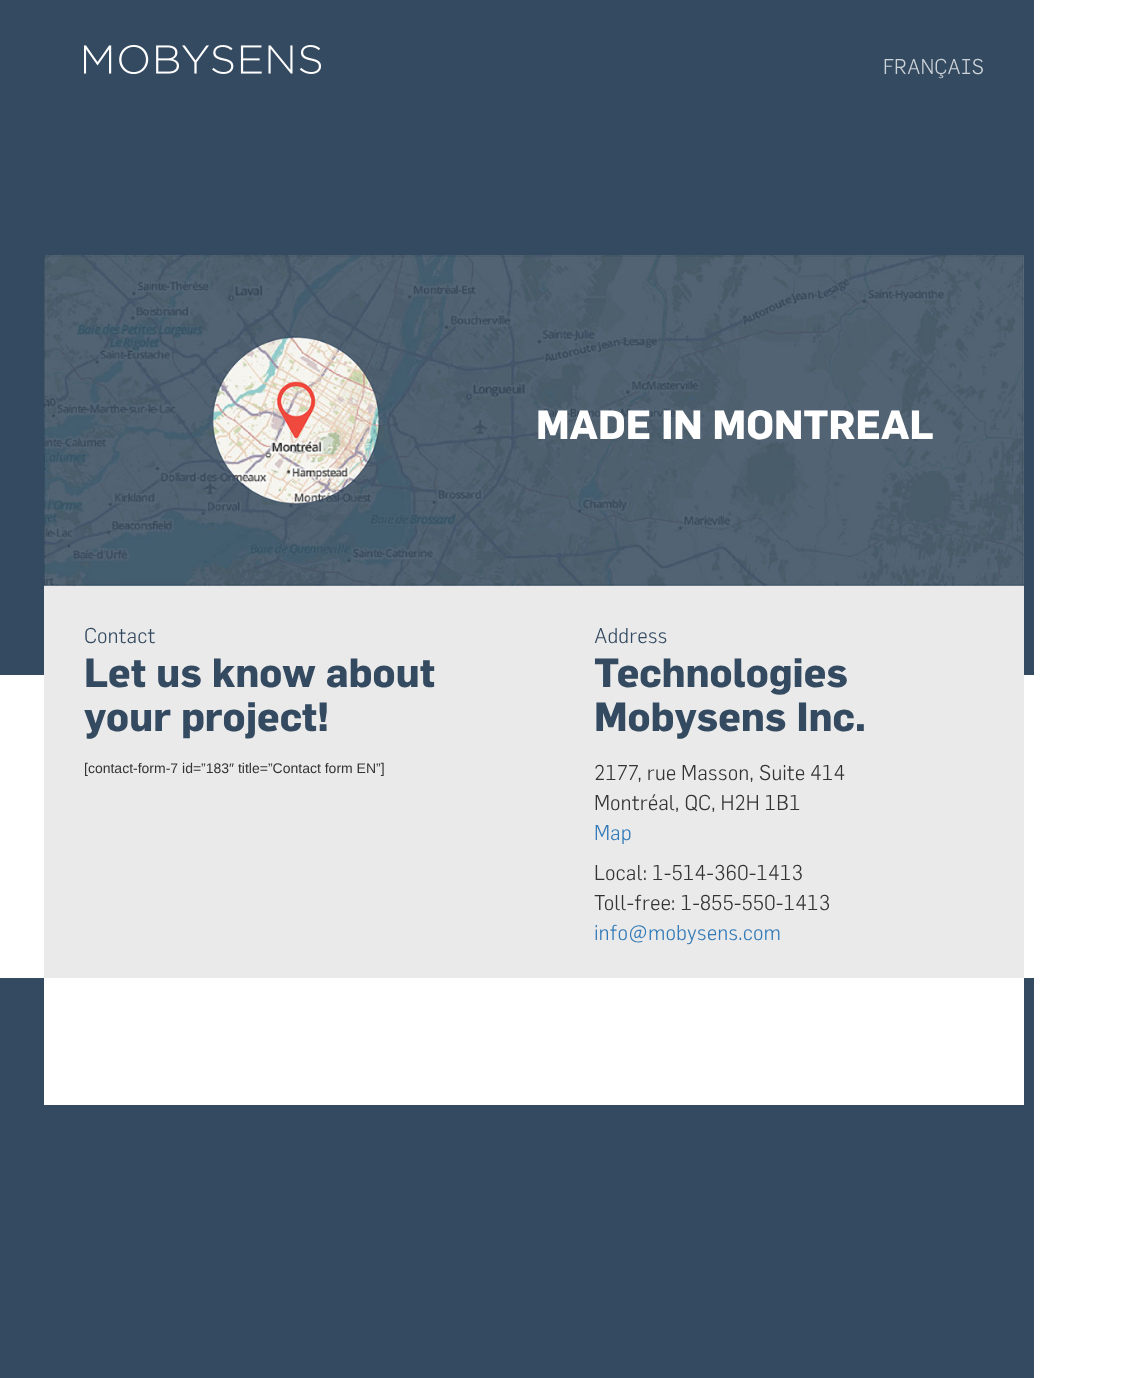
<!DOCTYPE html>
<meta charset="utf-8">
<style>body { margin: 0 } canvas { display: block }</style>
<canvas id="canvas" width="1134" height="1378"></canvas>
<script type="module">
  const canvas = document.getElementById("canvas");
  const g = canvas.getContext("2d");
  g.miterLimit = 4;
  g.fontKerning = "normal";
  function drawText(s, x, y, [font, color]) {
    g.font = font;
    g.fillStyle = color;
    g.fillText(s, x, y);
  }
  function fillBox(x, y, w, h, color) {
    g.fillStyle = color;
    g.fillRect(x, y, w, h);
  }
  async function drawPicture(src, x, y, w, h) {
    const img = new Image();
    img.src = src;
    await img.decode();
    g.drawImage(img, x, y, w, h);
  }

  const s1 = ["300 21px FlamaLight", "#CCD2D7"];
  const s2 = ["bold 40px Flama", "#FFFFFF"];
  const s3 = ["300 21px FlamaLight", "#344A60"];
  const s4 = ["bold 40px Flama", "#344A60"];
  const s5 = ["14px Liberation Sans", "#333333"];
  const s6 = ["300 21px FlamaLight", "#333333"];
  const s7 = ["300 21px FlamaLight", "#337AB7"];

  fillBox(0, 0, 1134, 1378, "#FFFFFF");
  fillBox(0, 0, 1034, 675, "#344A60");
  await drawPicture("pic1.png", 84, 45, 237, 29);
  drawText("FRANÇAIS", 883, 74, s1);
  fillBox(0, 978, 1034, 400, "#344A60");
  fillBox(44, 978, 980, 127, "#FFFFFF");
  fillBox(44, 586, 980, 392, "#EAEAEA");
  await drawPicture("pic2.png", 44, 255, 980, 331);
  drawText("MADE IN MONTREAL", 536, 439, s2);
  drawText("Contact", 84, 643, s3);
  drawText("Let us know about", 84, 687, s4);
  drawText("your project!", 84, 731, s4);
  drawText("[contact-form-7 id=”183″ title=”Contact form EN”]", 84, 773, s5);
  drawText("Address", 594, 643, s3);
  drawText("Technologies", 594, 687, s4);
  drawText("Mobysens Inc.", 594, 731, s4);
  drawText("2177, rue Masson, Suite 414", 594, 780, s6);
  drawText("Montréal, QC, H2H 1B1", 594, 810, s6);
  drawText("Map", 594, 840, s7);
  drawText("Local: 1-514-360-1413", 594, 880, s6);
  drawText("Toll-free: 1-855-550-1413", 594, 910, s6);
  drawText("info@mobysens.com", 594, 940, s7);
</script>
